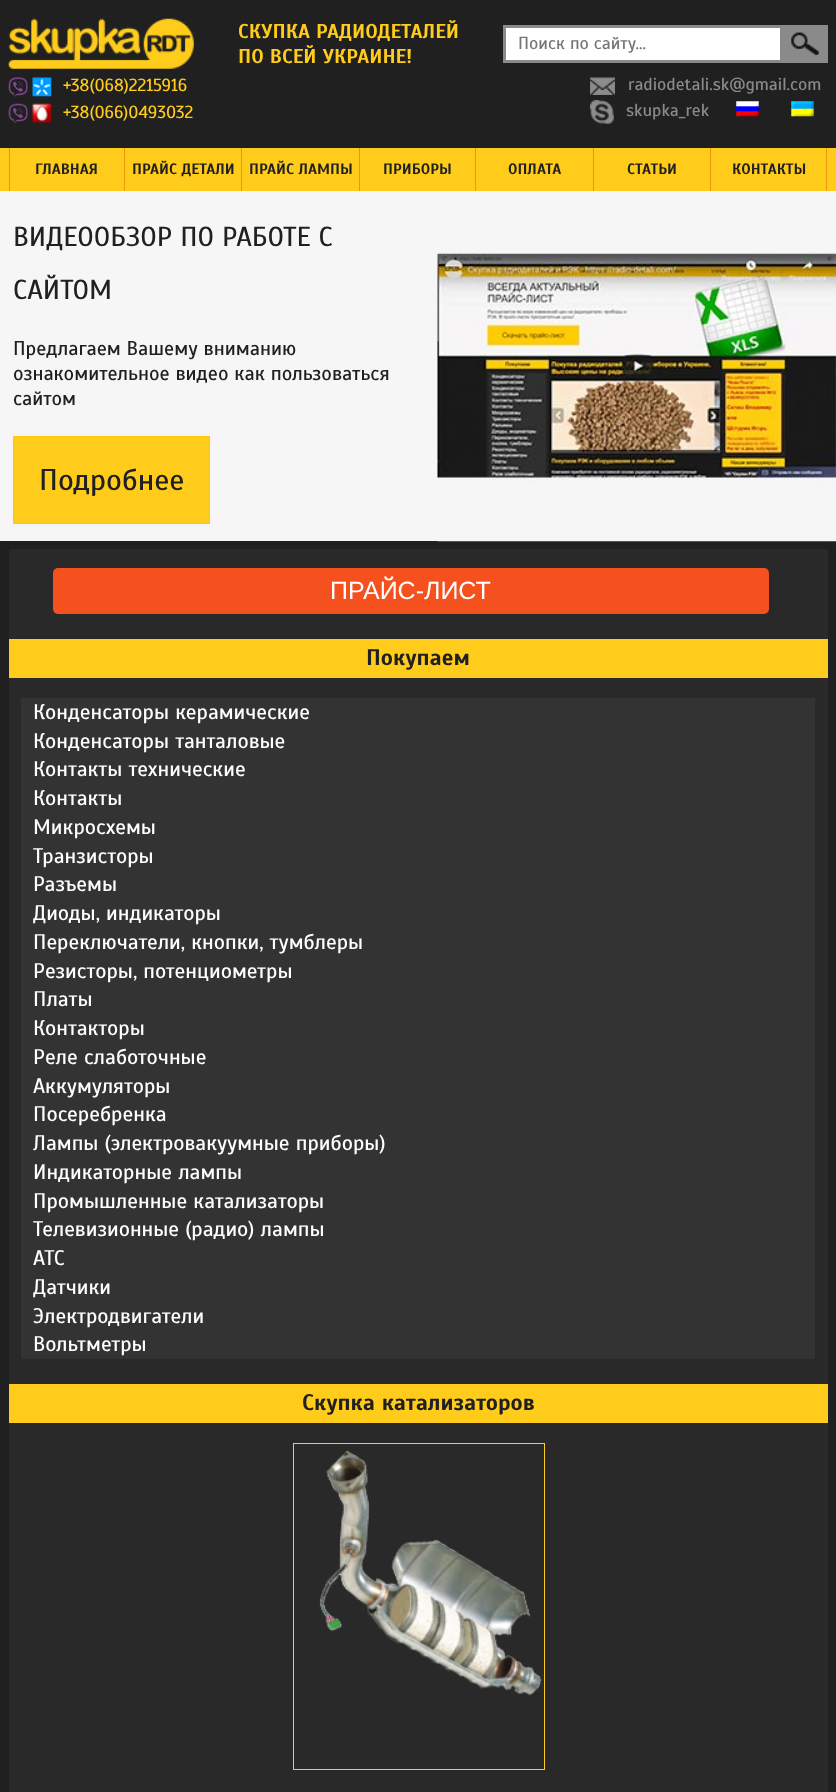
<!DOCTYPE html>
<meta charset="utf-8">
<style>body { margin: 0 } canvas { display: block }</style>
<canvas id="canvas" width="836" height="1792"></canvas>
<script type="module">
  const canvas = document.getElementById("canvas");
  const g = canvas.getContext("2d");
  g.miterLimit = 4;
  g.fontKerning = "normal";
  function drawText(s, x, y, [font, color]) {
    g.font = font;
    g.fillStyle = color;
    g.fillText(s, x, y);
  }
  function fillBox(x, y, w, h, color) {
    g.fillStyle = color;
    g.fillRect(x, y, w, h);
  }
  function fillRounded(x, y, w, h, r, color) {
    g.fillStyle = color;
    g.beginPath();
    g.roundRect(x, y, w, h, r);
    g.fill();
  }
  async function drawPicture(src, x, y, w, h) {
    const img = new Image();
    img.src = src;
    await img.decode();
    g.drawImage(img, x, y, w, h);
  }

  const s1 = ["bold 20px Scada", "#FFCC1B"];
  const s2 = ["17.5px Scada", "#757575"];
  const s3 = ["17.5px Scada", "#FFCC1B"];
  const s4 = ["17.5px Scada", "#8A8A8A"];
  const s5 = ["bold 15px Scada", "#202020"];
  const s6 = ["27.5px Scada", "#202020"];
  const s7 = ["20px Scada", "#202020"];
  const s8 = ["30px Scada", "#202020"];
  const s9 = ["25px Liberation Sans", "#FFFFFF"];
  const s10 = ["bold 22.5px Scada", "#202020"];
  const s11 = ["21.25px Scada", "#FFFFFF"];

  fillBox(0, 0, 836, 1792, "#202020");
  await drawPicture("pic1.png", 8, 18, 186, 51);
  drawText("CКУПКА РАДИОДЕТАЛЕЙ", 238, 38, s1);
  drawText("ПО ВСЕЙ УКРАИНЕ!", 238, 63, s1);
  g.fillStyle = "#FFFFFF";
  g.beginPath();
  g.rect(504.5, 26.5, 277, 35);
  g.fill();
  g.strokeStyle = "#8A8A8A";
  g.lineWidth = 3;
  g.stroke();
  drawText("Поиск по сайту...", 518, 49, s2);
  fillBox(783, 25, 45, 38, "#8A8A8A");
  await drawPicture("pic2.png", 791, 32, 28, 23);
  await drawPicture("pic3.png", 8, 77, 20, 20);
  await drawPicture("pic4.png", 32, 77, 20, 20);
  drawText("+38(068)2215916", 63, 91, s3);
  await drawPicture("pic5.png", 8, 103, 20, 20);
  await drawPicture("pic6.png", 32, 103, 20, 20);
  drawText("+38(066)0493032", 63, 118, s3);
  await drawPicture("pic7.png", 590, 77, 25, 18);
  drawText("radiodetali.sk@gmail.com", 628, 90, s4);
  await drawPicture("pic8.png", 590, 100, 24, 24);
  drawText("skupka_rek", 626, 116, s4);
  await drawPicture("pic9.png", 736, 101, 23, 16);
  await drawPicture("pic10.png", 791, 101, 23, 16);
  fillBox(0, 148, 836, 43, "#FFCC1B");
  fillBox(124, 148, 1, 43, "#E99809");
  fillBox(9, 148, 1, 43, "#E99809");
  drawText("ГЛАВНАЯ", 35, 174, s5);
  fillBox(241, 148, 1, 43, "#E99809");
  drawText("ПРАЙС ДЕТАЛИ", 132, 174, s5);
  fillBox(359, 148, 1, 43, "#E99809");
  drawText("ПРАЙС ЛАМПЫ", 249, 174, s5);
  fillBox(475, 148, 1, 43, "#E99809");
  drawText("ПРИБОРЫ", 383, 174, s5);
  fillBox(593, 148, 1, 43, "#E99809");
  drawText("ОПЛАТА", 508, 174, s5);
  fillBox(710, 148, 1, 43, "#E99809");
  drawText("СТАТЬИ", 627, 174, s5);
  fillBox(826, 148, 1, 43, "#E99809");
  drawText("КОНТАКТЫ", 732, 174, s5);
  fillBox(0, 191, 836, 350, "#F6F6F6");
  drawText("ВИДЕООБЗОР ПО РАБОТЕ С", 13, 246, s6);
  drawText("САЙТОМ", 13, 299, s6);
  drawText("Предлагаем Вашему вниманию", 13, 355, s7);
  drawText("ознакомительное видео как пользоваться", 13, 380, s7);
  drawText("сайтом", 13, 405, s7);
  g.fillStyle = "#FFCC1B";
  g.beginPath();
  g.rect(13.5, 436.5, 196, 87);
  g.fill();
  g.strokeStyle = "#FFC805";
  g.lineWidth = 1;
  g.stroke();
  drawText("Подробнее", 39, 490, s8);
  await drawPicture("pic11.png", 437, 251, 399, 291);
  fillBox(9, 549, 819, 1243, "#292929");
  fillRounded(53, 568, 716, 46, 5, "#F4511E");
  drawText("ПРАЙС-ЛИСТ", 330, 599, s9);
  fillBox(9, 639, 819, 39, "#FFCC1B");
  drawText("Покупаем", 366, 665, s10);
  fillBox(21, 698, 794, 661, "#333333");
  drawText("Конденсаторы керамические", 33, 719, s11);
  drawText("Конденсаторы танталовые", 33, 748, s11);
  drawText("Контакты технические", 33, 776, s11);
  drawText("Контакты", 33, 805, s11);
  drawText("Микросхемы", 33, 834, s11);
  drawText("Транзисторы", 33, 863, s11);
  drawText("Разъемы", 33, 891, s11);
  drawText("Диоды, индикаторы", 33, 920, s11);
  drawText("Переключатели, кнопки, тумблеры", 33, 949, s11);
  drawText("Резисторы, потенциометры", 33, 978, s11);
  drawText("Платы", 33, 1006, s11);
  drawText("Контакторы", 33, 1035, s11);
  drawText("Реле слаботочные", 33, 1064, s11);
  drawText("Аккумуляторы", 33, 1093, s11);
  drawText("Посеребренка", 33, 1121, s11);
  drawText("Лампы (электровакуумные приборы)", 33, 1150, s11);
  drawText("Индикаторные лампы", 33, 1179, s11);
  drawText("Промышленные катализаторы", 33, 1208, s11);
  drawText("Телевизионные (радио) лампы", 33, 1236, s11);
  drawText("АТС", 33, 1265, s11);
  drawText("Датчики", 33, 1294, s11);
  drawText("Электродвигатели", 33, 1323, s11);
  drawText("Вольтметры", 33, 1351, s11);
  fillBox(9, 1384, 819, 39, "#FFCC1B");
  drawText("Скупка катализаторов", 302, 1410, s10);
  g.strokeStyle = "#FFCC1B";
  g.strokeRect(293.5, 1443.5, 251, 326);
  await drawPicture("pic12.png", 319, 1450, 223, 246);
</script>
